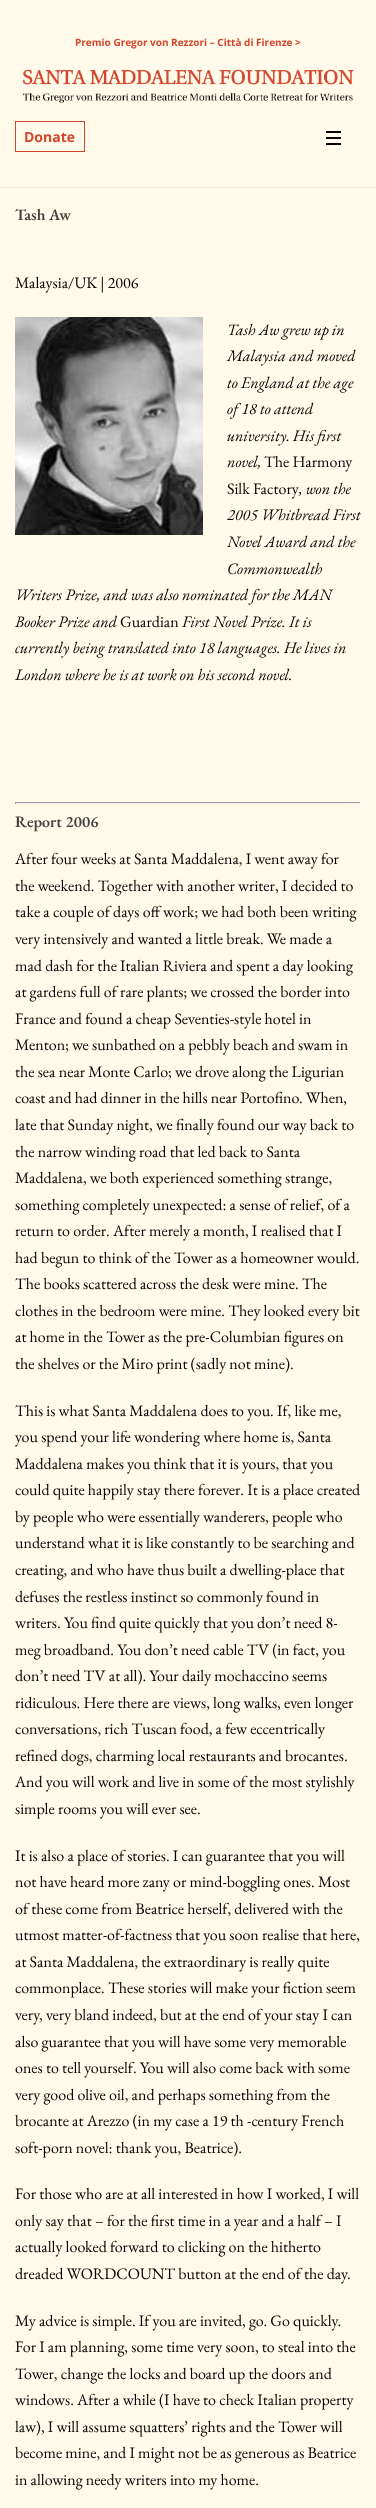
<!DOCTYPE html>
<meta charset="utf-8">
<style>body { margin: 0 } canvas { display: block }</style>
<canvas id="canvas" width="376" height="2508"></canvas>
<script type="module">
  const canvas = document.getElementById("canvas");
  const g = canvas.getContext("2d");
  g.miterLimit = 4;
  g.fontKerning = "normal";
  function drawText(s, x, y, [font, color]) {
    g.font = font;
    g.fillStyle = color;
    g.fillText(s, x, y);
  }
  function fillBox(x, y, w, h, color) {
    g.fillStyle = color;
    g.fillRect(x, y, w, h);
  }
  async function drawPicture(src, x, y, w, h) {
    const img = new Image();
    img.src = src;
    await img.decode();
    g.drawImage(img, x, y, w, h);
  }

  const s1 = ["bold 10px Open Sans", "#D3462D"];
  const s2 = ["bold 14px Open Sans", "#D3462D"];
  const s3 = ["600 16px EB Garamond", "#404040"];
  const s4 = ["16px EB Garamond", "#000000"];
  const s5 = ["italic 16px EB Garamond", "#000000"];

  fillBox(0, 0, 376, 2508, "#FFFAE9");
  drawText("Premio Gregor von Rezzori – Città di Firenze >", 75, 46, s1);
  await drawPicture("pic1.png", 22, 69, 332, 35);
  g.strokeStyle = "#D3462D";
  g.strokeRect(15.5, 121.5, 69, 30);
  drawText("Donate", 24, 142, s2);
  fillBox(326, 137, 15, 2, "#000000");
  fillBox(326, 131, 15, 2, "#000000");
  fillBox(326, 143, 15, 2, "#000000");
  fillBox(0, 187, 376, 1, "#EBE6D8");
  drawText("Tash Aw", 15, 220, s3);
  drawText("Malaysia/UK | 2006", 15, 288, s4);
  await drawPicture("pic2.png", 15, 317, 188, 218);
  drawText("Tash Aw grew up in", 227, 335, s5);
  drawText("Malaysia and moved", 227, 361, s5);
  drawText("to England at the age", 227, 388, s5);
  drawText("of 18 to attend", 227, 414, s5);
  drawText("university. His first", 227, 441, s5);
  drawText("novel,", 227, 467, s5);
  drawText("The Harmony", 264, 467, s4);
  drawText("Silk Factory", 227, 494, s4);
  drawText(", won the", 299, 494, s5);
  drawText("2005 Whitbread First", 227, 520, s5);
  drawText("Novel Award and the", 227, 547, s5);
  drawText("Commonwealth", 227, 574, s5);
  drawText("Writers Prize, and was also nominated for the MAN", 15, 600, s5);
  drawText("Booker Prize and", 15, 627, s5);
  drawText("Guardian", 120, 627, s4);
  drawText("First Novel Prize. It is", 182, 627, s5);
  drawText("currently being translated into 18 languages. He lives in", 15, 653, s5);
  drawText("London where he is at work on his second novel.", 15, 680, s5);
  fillBox(15, 802, 346, 1, "#9F9F9F");
  fillBox(360, 802, 1, 2, "#EEEEEE");
  fillBox(15, 803, 346, 1, "#EEEEEE");
  fillBox(15, 802, 1, 2, "#9F9F9F");
  drawText("Report 2006", 15, 827, s3);
  drawText("After four weeks at Santa Maddalena, I went away for", 15, 864, s4);
  drawText("the weekend. Together with another writer, I decided to", 15, 891, s4);
  drawText("take a couple of days off work; we had both been writing", 15, 917, s4);
  drawText("very intensively and wanted a little break. We made a", 15, 944, s4);
  drawText("mad dash for the Italian Riviera and spent a day looking", 15, 971, s4);
  drawText("at gardens full of rare plants; we crossed the border into", 15, 997, s4);
  drawText("France and found a cheap Seventies-style hotel in", 15, 1024, s4);
  drawText("Menton; we sunbathed on a pebbly beach and swam in", 15, 1050, s4);
  drawText("the sea near Monte Carlo; we drove along the Ligurian", 15, 1077, s4);
  drawText("coast and had dinner in the hills near Portofino. When,", 15, 1103, s4);
  drawText("late that Sunday night, we finally found our way back to", 15, 1130, s4);
  drawText("the narrow winding road that led back to Santa", 15, 1157, s4);
  drawText("Maddalena, we both experienced something strange,", 15, 1183, s4);
  drawText("something completely unexpected: a sense of relief, of a", 15, 1210, s4);
  drawText("return to order. After merely a month, I realised that I", 15, 1236, s4);
  drawText("had begun to think of the Tower as a homeowner would.", 15, 1263, s4);
  drawText("The books scattered across the desk were mine. The", 15, 1289, s4);
  drawText("clothes in the bedroom were mine. They looked every bit", 15, 1316, s4);
  drawText("at home in the Tower as the pre-Columbian figures on", 15, 1342, s4);
  drawText("the shelves or the Miro print (sadly not mine).", 15, 1369, s4);
  drawText("This is what Santa Maddalena does to you. If, like me,", 15, 1416, s4);
  drawText("you spend your life wondering where home is, Santa", 15, 1442, s4);
  drawText("Maddalena makes you think that it is yours, that you", 15, 1469, s4);
  drawText("could quite happily stay there forever. It is a place created", 15, 1495, s4);
  drawText("by people who were essentially wanderers, people who", 15, 1522, s4);
  drawText("understand what it is like constantly to be searching and", 15, 1548, s4);
  drawText("creating, and who have thus built a dwelling-place that", 15, 1575, s4);
  drawText("defuses the restless instinct so commonly found in", 15, 1602, s4);
  drawText("writers. You find quite quickly that you don’t need 8-", 15, 1628, s4);
  drawText("meg broadband. You don’t need cable TV (in fact, you", 15, 1655, s4);
  drawText("don’t need TV at all). Your daily mochaccino seems", 15, 1681, s4);
  drawText("ridiculous. Here there are views, long walks, even longer", 15, 1708, s4);
  drawText("conversations, rich Tuscan food, a few eccentrically", 15, 1734, s4);
  drawText("refined dogs, charming local restaurants and brocantes.", 15, 1761, s4);
  drawText("And you will work and live in some of the most stylishly", 15, 1787, s4);
  drawText("simple rooms you will ever see.", 15, 1814, s4);
  drawText("It is also a place of stories. I can guarantee that you will", 15, 1861, s4);
  drawText("not have heard more zany or mind-boggling ones. Most", 15, 1887, s4);
  drawText("of these come from Beatrice herself, delivered with the", 15, 1914, s4);
  drawText("utmost matter-of-factness that you soon realise that here,", 15, 1940, s4);
  drawText("at Santa Maddalena, the extraordinary is really quite", 15, 1967, s4);
  drawText("commonplace. These stories will make your fiction seem", 15, 1993, s4);
  drawText("very, very bland indeed, but at the end of your stay I can", 15, 2020, s4);
  drawText("also guarantee that you will have some very memorable", 15, 2047, s4);
  drawText("ones to tell yourself. You will also come back with some", 15, 2073, s4);
  drawText("very good olive oil, and perhaps something from the", 15, 2100, s4);
  drawText("brocante at Arezzo (in my case a 19 th -century French", 15, 2126, s4);
  drawText("soft-porn novel: thank you, Beatrice).", 15, 2153, s4);
  drawText("For those who are at all interested in how I worked, I will", 15, 2199, s4);
  drawText("only say that – for the first time in a year and a half – I", 15, 2226, s4);
  drawText("actually looked forward to clicking on the hitherto", 15, 2252, s4);
  drawText("dreaded WORDCOUNT button at the end of the day.", 15, 2279, s4);
  drawText("My advice is simple. If you are invited, go. Go quickly.", 15, 2326, s4);
  drawText("For I am planning, some time very soon, to steal into the", 15, 2352, s4);
  drawText("Tower, change the locks and board up the doors and", 15, 2379, s4);
  drawText("windows. After a while (I have to check Italian property", 15, 2405, s4);
  drawText("law), I will assume squatters’ rights and the Tower will", 15, 2432, s4);
  drawText("become mine, and I might not be as generous as Beatrice", 15, 2458, s4);
  drawText("in allowing needy writers into my home.", 15, 2485, s4);
</script>
